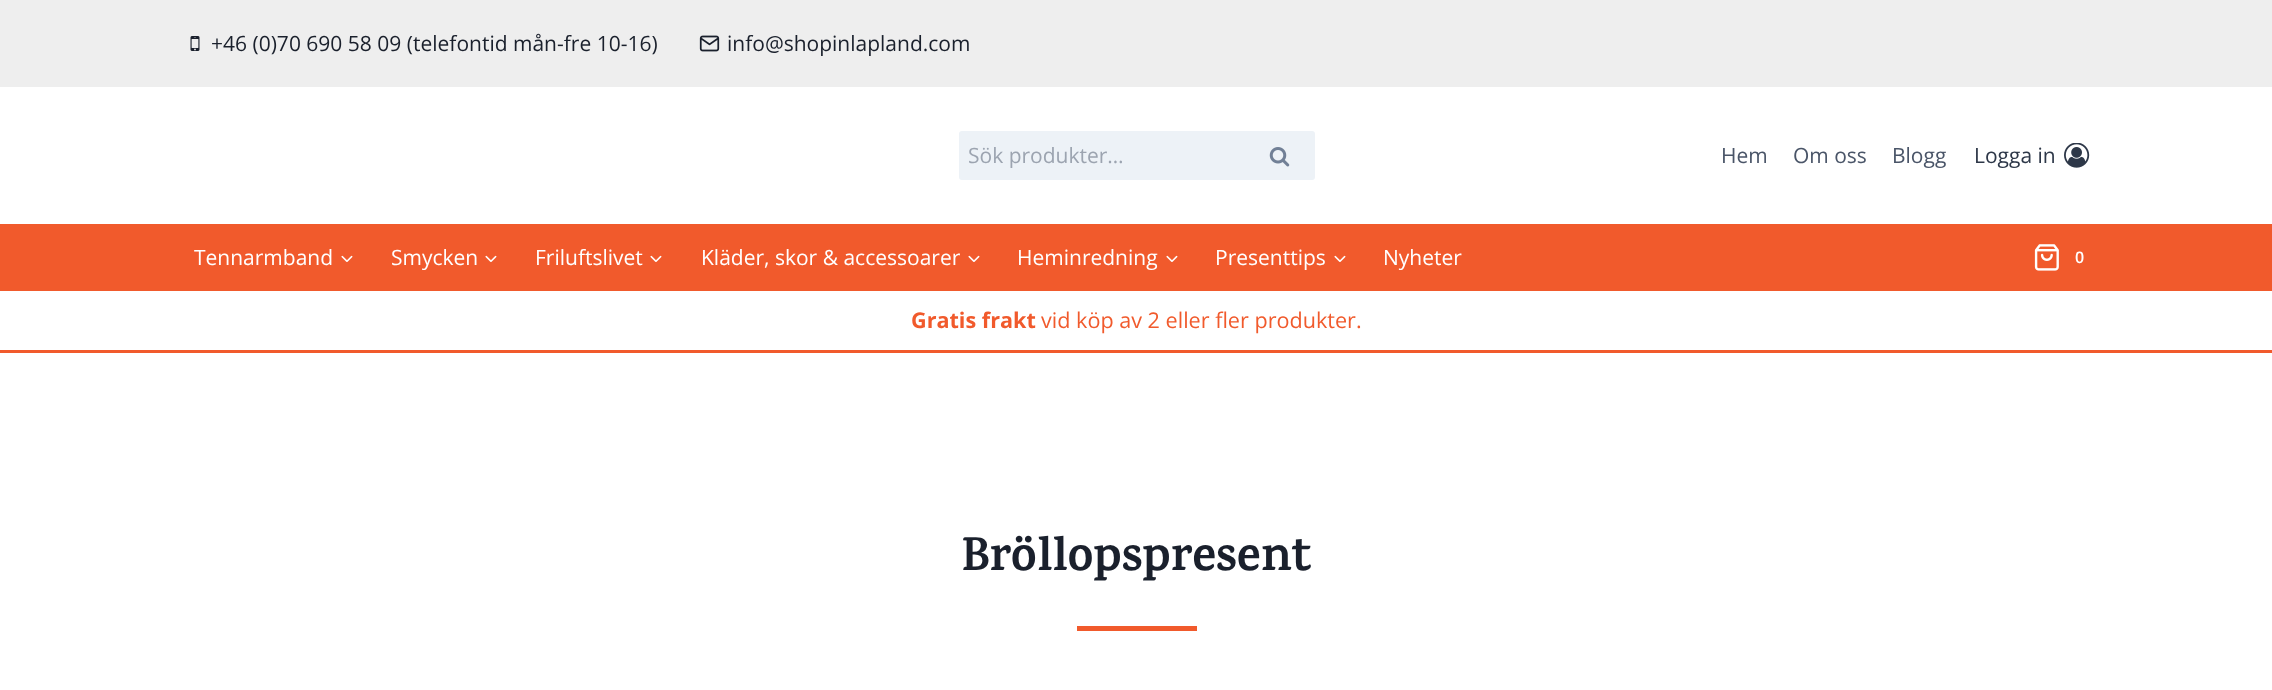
<!DOCTYPE html>
<meta charset="utf-8">
<style>body { margin: 0 } canvas { display: block }</style>
<canvas id="canvas" width="2272" height="690"></canvas>
<script type="module">
  const canvas = document.getElementById("canvas");
  const g = canvas.getContext("2d");
  g.miterLimit = 4;
  g.fontKerning = "normal";
  function drawText(s, x, y, [font, color]) {
    g.font = font;
    g.fillStyle = color;
    g.fillText(s, x, y);
  }
  function fillBox(x, y, w, h, color) {
    g.fillStyle = color;
    g.fillRect(x, y, w, h);
  }
  async function drawPicture(src, x, y, w, h) {
    const img = new Image();
    img.src = src;
    await img.decode();
    g.drawImage(img, x, y, w, h);
  }

  const s1 = ["21px Open Sans", "#1A202C"];
  const s2 = ["21px Open Sans", "#9CA4B0"];
  const s3 = ["21px Open Sans", "#4A5568"];
  const s4 = ["21px Open Sans", "#2D3748"];
  const s5 = ["21px Open Sans", "#FFFFFF"];
  const s6 = ["600 16px Open Sans", "#FFFFFF"];
  const s7 = ["bold 21.6px Open Sans", "#F15A2C"];
  const s8 = ["21.6px Open Sans", "#F15A2C"];
  const s9 = ["bold 48px Karma", "#1A202C"];

  fillBox(0, 0, 2272, 690, "#FFFFFF");
  fillBox(0, 0, 2272, 87, "#EEEEEE");
  await drawPicture("pic1.png", 190, 36, 10, 15);
  drawText("+46 (0)70 690 58 09 (telefontid mån-fre 10-16)", 211, 51, s1);
  await drawPicture("pic2.png", 699, 35, 21, 17);
  drawText("info@shopinlapland.com", 727, 51, s1);
  g.fillStyle = "#EDF2F7";
  g.beginPath();
  g.roundRect(958, 130, 358, 51, 4);
  g.fill();
  g.strokeStyle = "#FFFFFF";
  g.lineWidth = 2;
  g.stroke();
  drawText("Sök produkter…", 968, 163, s2);
  await drawPicture("pic3.png", 1269, 147, 21, 20);
  drawText("Hem", 1721, 163, s3);
  drawText("Om oss", 1793, 163, s3);
  drawText("Blogg", 1892, 163, s3);
  drawText("Logga in", 1974, 163, s4);
  await drawPicture("pic4.png", 2064, 143, 26, 25);
  fillBox(0, 224, 2272, 67, "#F15A2C");
  drawText("Tennarmband", 194, 265, s5);
  await drawPicture("pic5.png", 341, 255, 12, 7);
  drawText("Smycken", 391, 265, s5);
  await drawPicture("pic5.png", 485, 255, 12, 7);
  drawText("Friluftslivet", 535, 265, s5);
  await drawPicture("pic5.png", 650, 255, 12, 7);
  drawText("Kläder, skor & accessoarer", 701, 265, s5);
  await drawPicture("pic5.png", 968, 255, 12, 7);
  drawText("Heminredning", 1017, 265, s5);
  await drawPicture("pic5.png", 1166, 255, 12, 7);
  drawText("Presenttips", 1215, 265, s5);
  await drawPicture("pic5.png", 1334, 255, 12, 7);
  drawText("Nyheter", 1383, 265, s5);
  await drawPicture("pic6.png", 2034, 244, 25, 27);
  drawText("0", 2075, 263, s6);
  fillBox(0, 350, 2272, 3, "#F15A2C");
  drawText("Gratis frakt", 911, 328, s7);
  drawText("vid köp av 2 eller fler produkter.", 1041, 328, s8);
  drawText("Bröllopspresent", 961, 570, s9);
  fillBox(1077, 626, 120, 5, "#F15A2C");
</script>
